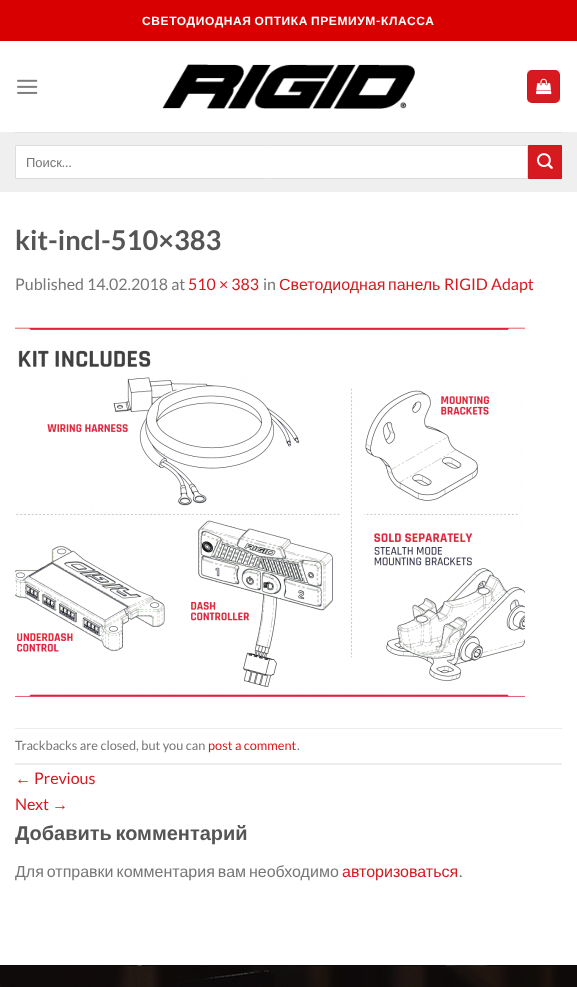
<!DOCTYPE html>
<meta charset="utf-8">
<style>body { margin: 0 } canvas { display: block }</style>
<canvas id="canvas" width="577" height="987"></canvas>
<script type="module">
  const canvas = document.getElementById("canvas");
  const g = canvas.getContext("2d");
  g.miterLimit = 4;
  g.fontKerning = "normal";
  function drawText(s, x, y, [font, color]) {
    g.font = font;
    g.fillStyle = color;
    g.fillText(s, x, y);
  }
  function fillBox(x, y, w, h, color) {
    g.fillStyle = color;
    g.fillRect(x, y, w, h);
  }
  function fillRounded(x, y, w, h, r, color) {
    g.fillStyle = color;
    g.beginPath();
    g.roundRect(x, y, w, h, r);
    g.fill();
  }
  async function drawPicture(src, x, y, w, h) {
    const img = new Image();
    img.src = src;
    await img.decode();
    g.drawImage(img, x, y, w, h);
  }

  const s1 = ["bold 12px Liberation Sans", "#FFFFFF"];
  const s2 = ["bold 12px Lato", "#FFFFFF"];
  const s3 = ["13px Liberation Sans", "#777777"];
  const s4 = ["13px Lato", "#777777"];
  const s5 = ["bold 27.25px Lato", "#555555"];
  const s6 = ["16px Lato", "#777777"];
  const s7 = ["16px Lato", "#D71920"];
  const s8 = ["16px Liberation Sans", "#D71920"];
  const s9 = ["12.75px Lato", "#777777"];
  const s10 = ["12.75px Lato", "#D71920"];
  const s11 = ["bold 20px Liberation Sans", "#555555"];
  const s12 = ["16px Liberation Sans", "#777777"];

  fillBox(0, 0, 577, 987, "#FFFFFF");
  fillBox(0, 0, 577, 41, "#D80000");
  g.letterSpacing = "0.6px";
  g.wordSpacing = "-1px";
  drawText("СВЕТОДИОДНАЯ ОПТИКА ПРЕМИУМ", 142, 25, s1);
  g.wordSpacing = "0px";
  drawText("-", 376, 25, s2);
  drawText("КЛАССА", 381, 25, s1);
  await drawPicture("pic1.png", 17, 79, 21, 15);
  await drawPicture("pic2.png", 162, 64, 253, 45);
  fillRounded(527, 70, 33, 33, 5, "#D71920");
  g.strokeStyle = "rgba(0, 0, 0, 0.05)";
  g.strokeRect(527.5, 70.5, 32, 32);
  await drawPicture("pic3.png", 536, 78, 16, 17);
  fillBox(0, 132, 577, 60, "#EFEFEF");
  fillBox(15, 132, 547, 1, "#E3E3E3");
  g.fillStyle = "#FFFFFF";
  g.beginPath();
  g.rect(15.5, 145.5, 512, 33);
  g.fill();
  g.strokeStyle = "#DDDDDD";
  g.stroke();
  g.letterSpacing = "0px";
  drawText("Поиск", 26, 167, s3);
  drawText("…", 62, 167, s4);
  g.fillStyle = "#D71920";
  g.beginPath();
  g.rect(528.5, 145.5, 33, 33);
  g.fill();
  g.strokeStyle = "#CC181E";
  g.stroke();
  await drawPicture("pic4.png", 537, 153, 16, 16);
  drawText("kit-incl-510×383", 15, 250, s5);
  drawText("Published 14.02.2018 at", 15, 290, s6);
  drawText("510 × 383", 188, 290, s7);
  drawText("in", 263, 290, s6);
  drawText("Светодиодная", 279, 290, s8);
  drawText("панель", 388, 290, s8);
  drawText("RIGID Adapt", 444, 290, s7);
  await drawPicture("pic5.png", 15, 327, 510, 370);
  fillBox(15, 728, 547, 1, "#ECECEC");
  fillBox(15, 763, 547, 2, "#ECECEC");
  drawText("Trackbacks are closed, but you can", 15, 750, s9);
  drawText("post a comment", 208, 750, s10);
  drawText(".", 297, 750, s9);
  drawText("←", 15, 784, s8);
  drawText("Previous", 34, 784, s7);
  drawText("Next", 15, 810, s7);
  drawText("→", 52, 810, s8);
  g.wordSpacing = "-2px";
  drawText("Добавить комментарий", 15, 840, s11);
  g.wordSpacing = "-1.5px";
  drawText("Для отправки комментария вам необходимо", 15, 877, s12);
  g.wordSpacing = "0px";
  drawText("авторизоваться", 342, 877, s8);
  drawText(".", 459, 877, s6);
  await drawPicture("pic6.png", 0, 965, 577, 22);
  fillBox(138, 965, 311, 1, "rgba(0, 0, 0, 0.05)");
</script>
